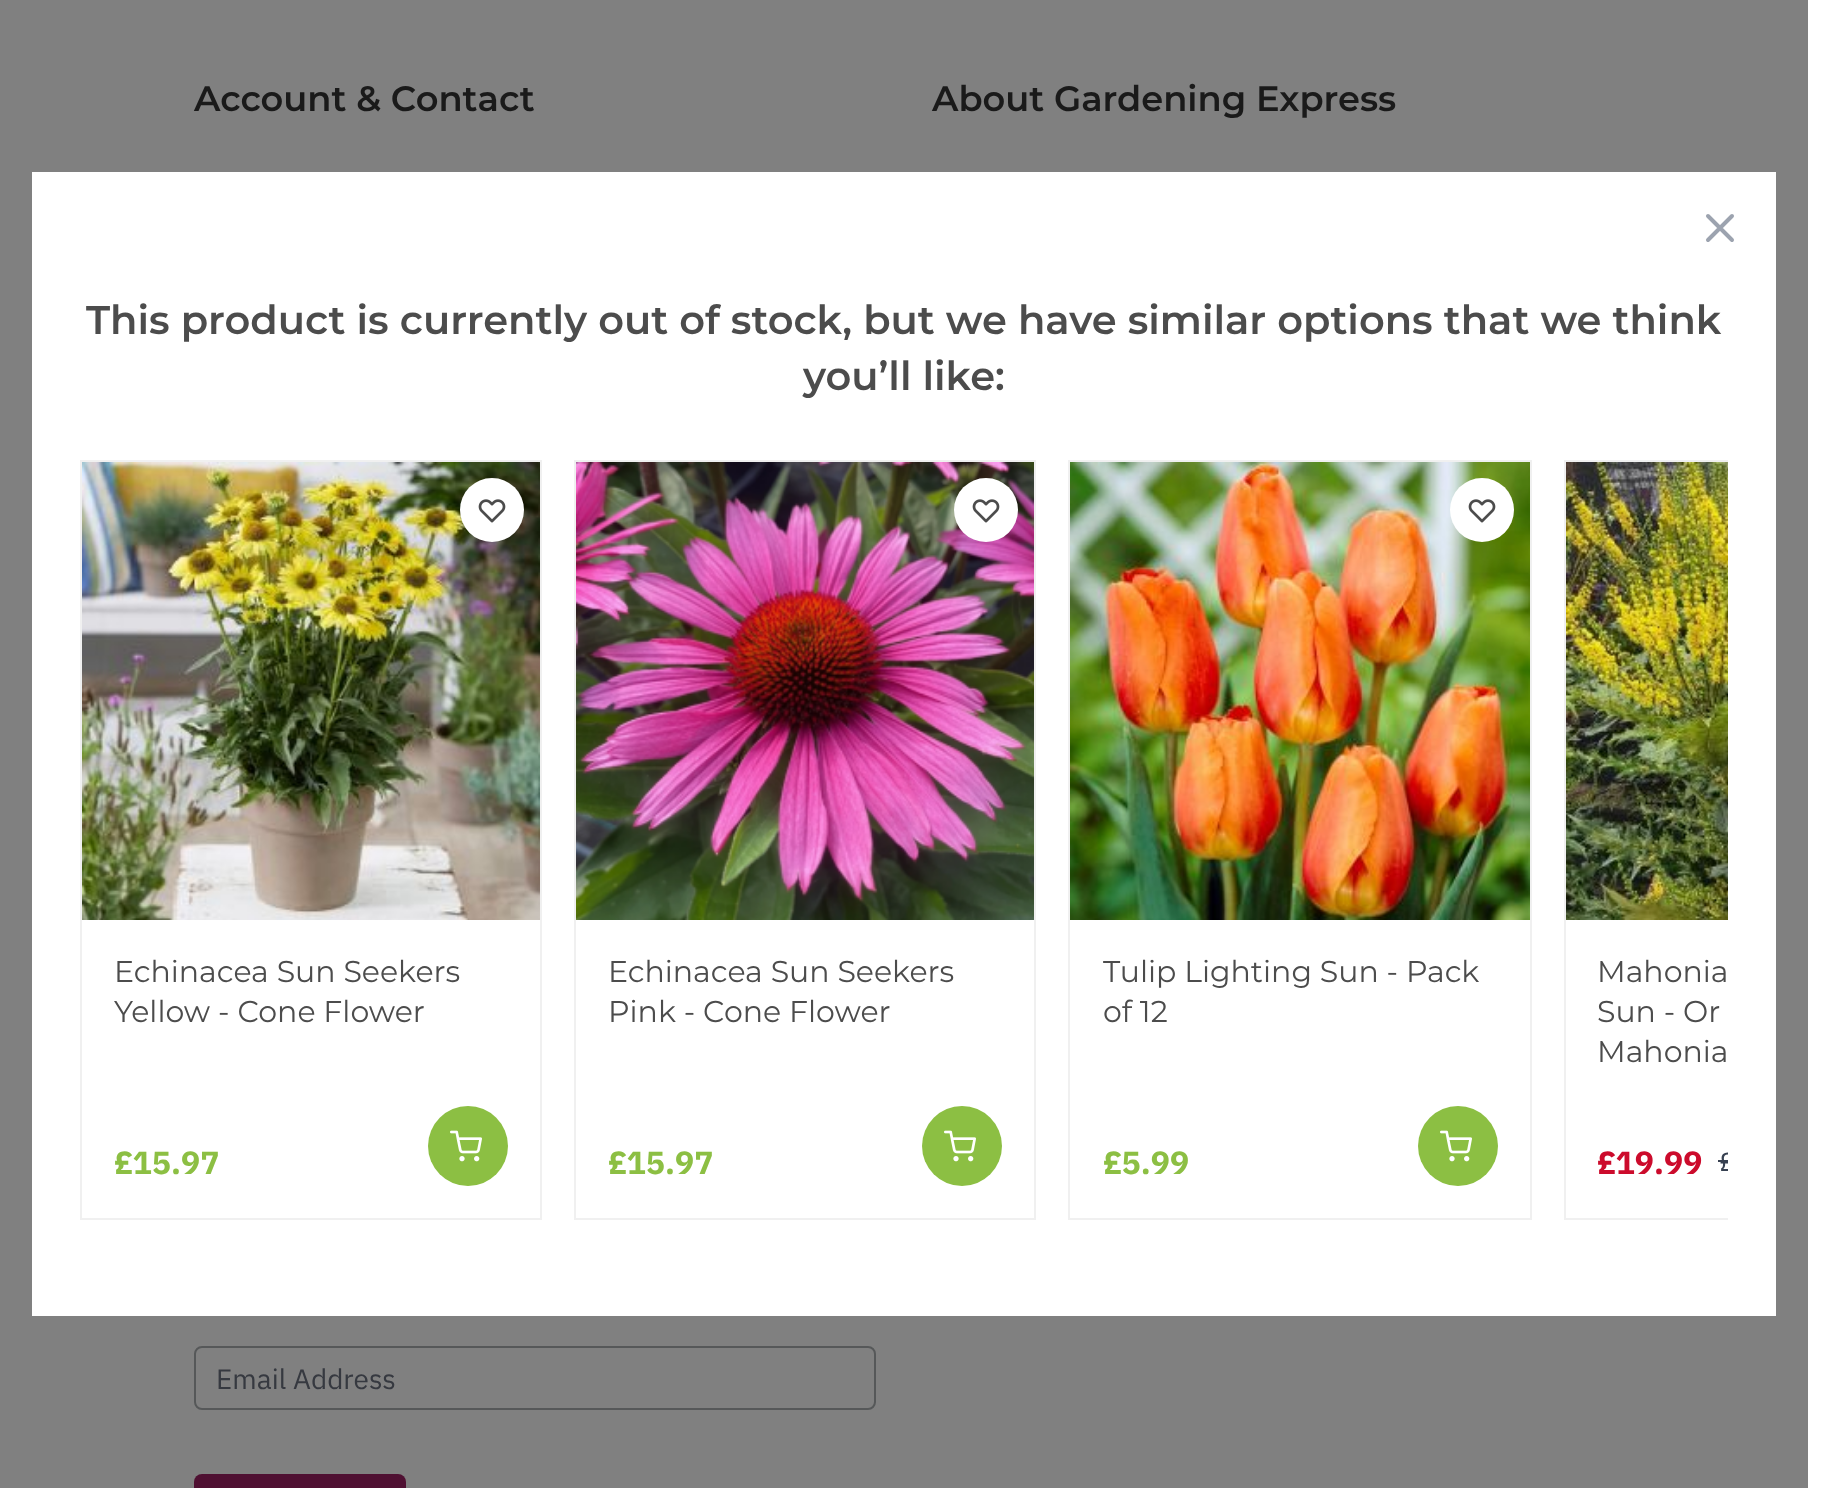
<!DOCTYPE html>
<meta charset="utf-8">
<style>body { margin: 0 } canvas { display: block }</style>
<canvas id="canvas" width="1838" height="1488"></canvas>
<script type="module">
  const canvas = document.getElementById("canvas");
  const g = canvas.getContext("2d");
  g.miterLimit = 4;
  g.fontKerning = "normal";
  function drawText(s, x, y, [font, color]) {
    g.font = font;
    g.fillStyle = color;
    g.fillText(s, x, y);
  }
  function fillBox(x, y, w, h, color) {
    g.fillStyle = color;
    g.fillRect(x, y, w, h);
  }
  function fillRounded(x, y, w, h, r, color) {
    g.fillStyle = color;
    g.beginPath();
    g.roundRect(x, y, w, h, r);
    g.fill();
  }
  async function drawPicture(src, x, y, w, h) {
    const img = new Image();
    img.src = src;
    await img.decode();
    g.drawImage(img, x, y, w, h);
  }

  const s1 = ["600 35.25px Montserrat", "#1A1A1A"];
  const s2 = ["28px IBM Plex Sans", "#363940"];
  const s3 = ["600 40px Montserrat", "#4C4C4C"];
  const s4 = ["30px Montserrat", "#4C4C4C"];
  const s5 = ["bold 32px IBM Plex Sans", "#8CBF43"];
  const s6 = ["bold 32px IBM Plex Sans", "#CC0B2C"];
  const s7 = ["26px IBM Plex Sans", "#374151"];

  fillBox(0, 0, 1838, 1488, "#FFFFFF");
  fillBox(0, 0, 1808, 1488, "#808080");
  drawText("Account & Contact", 194, 111, s1);
  drawText("About Gardening Express", 932, 111, s1);
  g.beginPath();
  g.roundRect(195, 1347, 680, 62, 7);
  g.strokeStyle = "#565859";
  g.lineWidth = 2;
  g.stroke();
  drawText("Email Address", 216, 1389, s2);
  fillRounded(194, 1474, 212, 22, 8, "#4F1032");
  fillBox(32, 172, 1744, 1144, "#FFFFFF");
  g.beginPath();
  g.moveTo(1708, 240);
  g.lineTo(1732, 216);
  g.moveTo(1708, 216);
  g.lineTo(1732, 240);
  g.strokeStyle = "#9CA3AF";
  g.lineWidth = 4;
  g.lineCap = "round";
  g.lineJoin = "round";
  g.stroke();
  drawText("This product is currently out of stock, but we have similar options that we think", 86, 334, s3);
  drawText("you’ll like:", 803, 390, s3);
  g.strokeStyle = "#F0F0F0";
  g.lineWidth = 2;
  g.lineJoin = "miter";
  g.strokeRect(81, 461, 460, 758);
  await drawPicture("pic1.png", 82, 462, 458, 458);
  g.fillStyle = "#FFFFFF";
  g.beginPath();
  g.arc(492, 510, 32, 0, Math.PI * 2);
  g.fill();
  await drawPicture("pic2.png", 478, 499, 28, 24);
  drawText("Echinacea Sun Seekers", 114, 982, s4);
  drawText("Yellow - Cone Flower", 114, 1022, s4);
  drawText("£15.97", 114, 1174, s5);
  g.beginPath();
  g.arc(468, 1146, 40, 0, Math.PI * 2);
  g.fill();
  await drawPicture("pic3.png", 450, 1130, 32, 32);
  g.strokeRect(575, 461, 460, 758);
  await drawPicture("pic4.png", 576, 462, 458, 458);
  g.fillStyle = "#FFFFFF";
  g.beginPath();
  g.arc(986, 510, 32, 0, Math.PI * 2);
  g.fill();
  await drawPicture("pic2.png", 972, 499, 28, 24);
  drawText("Echinacea Sun Seekers", 608, 982, s4);
  drawText("Pink - Cone Flower", 608, 1022, s4);
  drawText("£15.97", 608, 1174, s5);
  g.beginPath();
  g.arc(962, 1146, 40, 0, Math.PI * 2);
  g.fill();
  await drawPicture("pic3.png", 944, 1130, 32, 32);
  g.strokeRect(1069, 461, 462, 758);
  await drawPicture("pic5.png", 1070, 462, 460, 458);
  g.fillStyle = "#FFFFFF";
  g.beginPath();
  g.arc(1482, 510, 32, 0, Math.PI * 2);
  g.fill();
  await drawPicture("pic2.png", 1468, 499, 28, 24);
  drawText("Tulip Lighting Sun - Pack", 1103, 982, s4);
  drawText("of 12", 1103, 1022, s4);
  drawText("£5.99", 1103, 1174, s5);
  g.beginPath();
  g.arc(1458, 1146, 40, 0, Math.PI * 2);
  g.fill();
  await drawPicture("pic3.png", 1440, 1130, 32, 32);
  g.save();
  g.beginPath();
  g.rect(80, 460, 1648, 760);
  g.clip();
  g.strokeRect(1565, 461, 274, 758);
  g.restore();
  await drawPicture("pic6.png", 1566, 462, 162, 458);
  drawText("Mahonia", 1597, 982, s4);
  drawText("Sun - Or", 1597, 1022, s4);
  drawText("Mahonia", 1597, 1062, s4);
  drawText("£19.99", 1597, 1174, s6);
  g.save();
  g.beginPath();
  g.rect(1566, 462, 162, 756);
  g.clip();
  drawText("£", 1719, 1171, s7);
  g.restore();
  fillBox(1718, 1160, 10, 2, "#374151");
</script>
